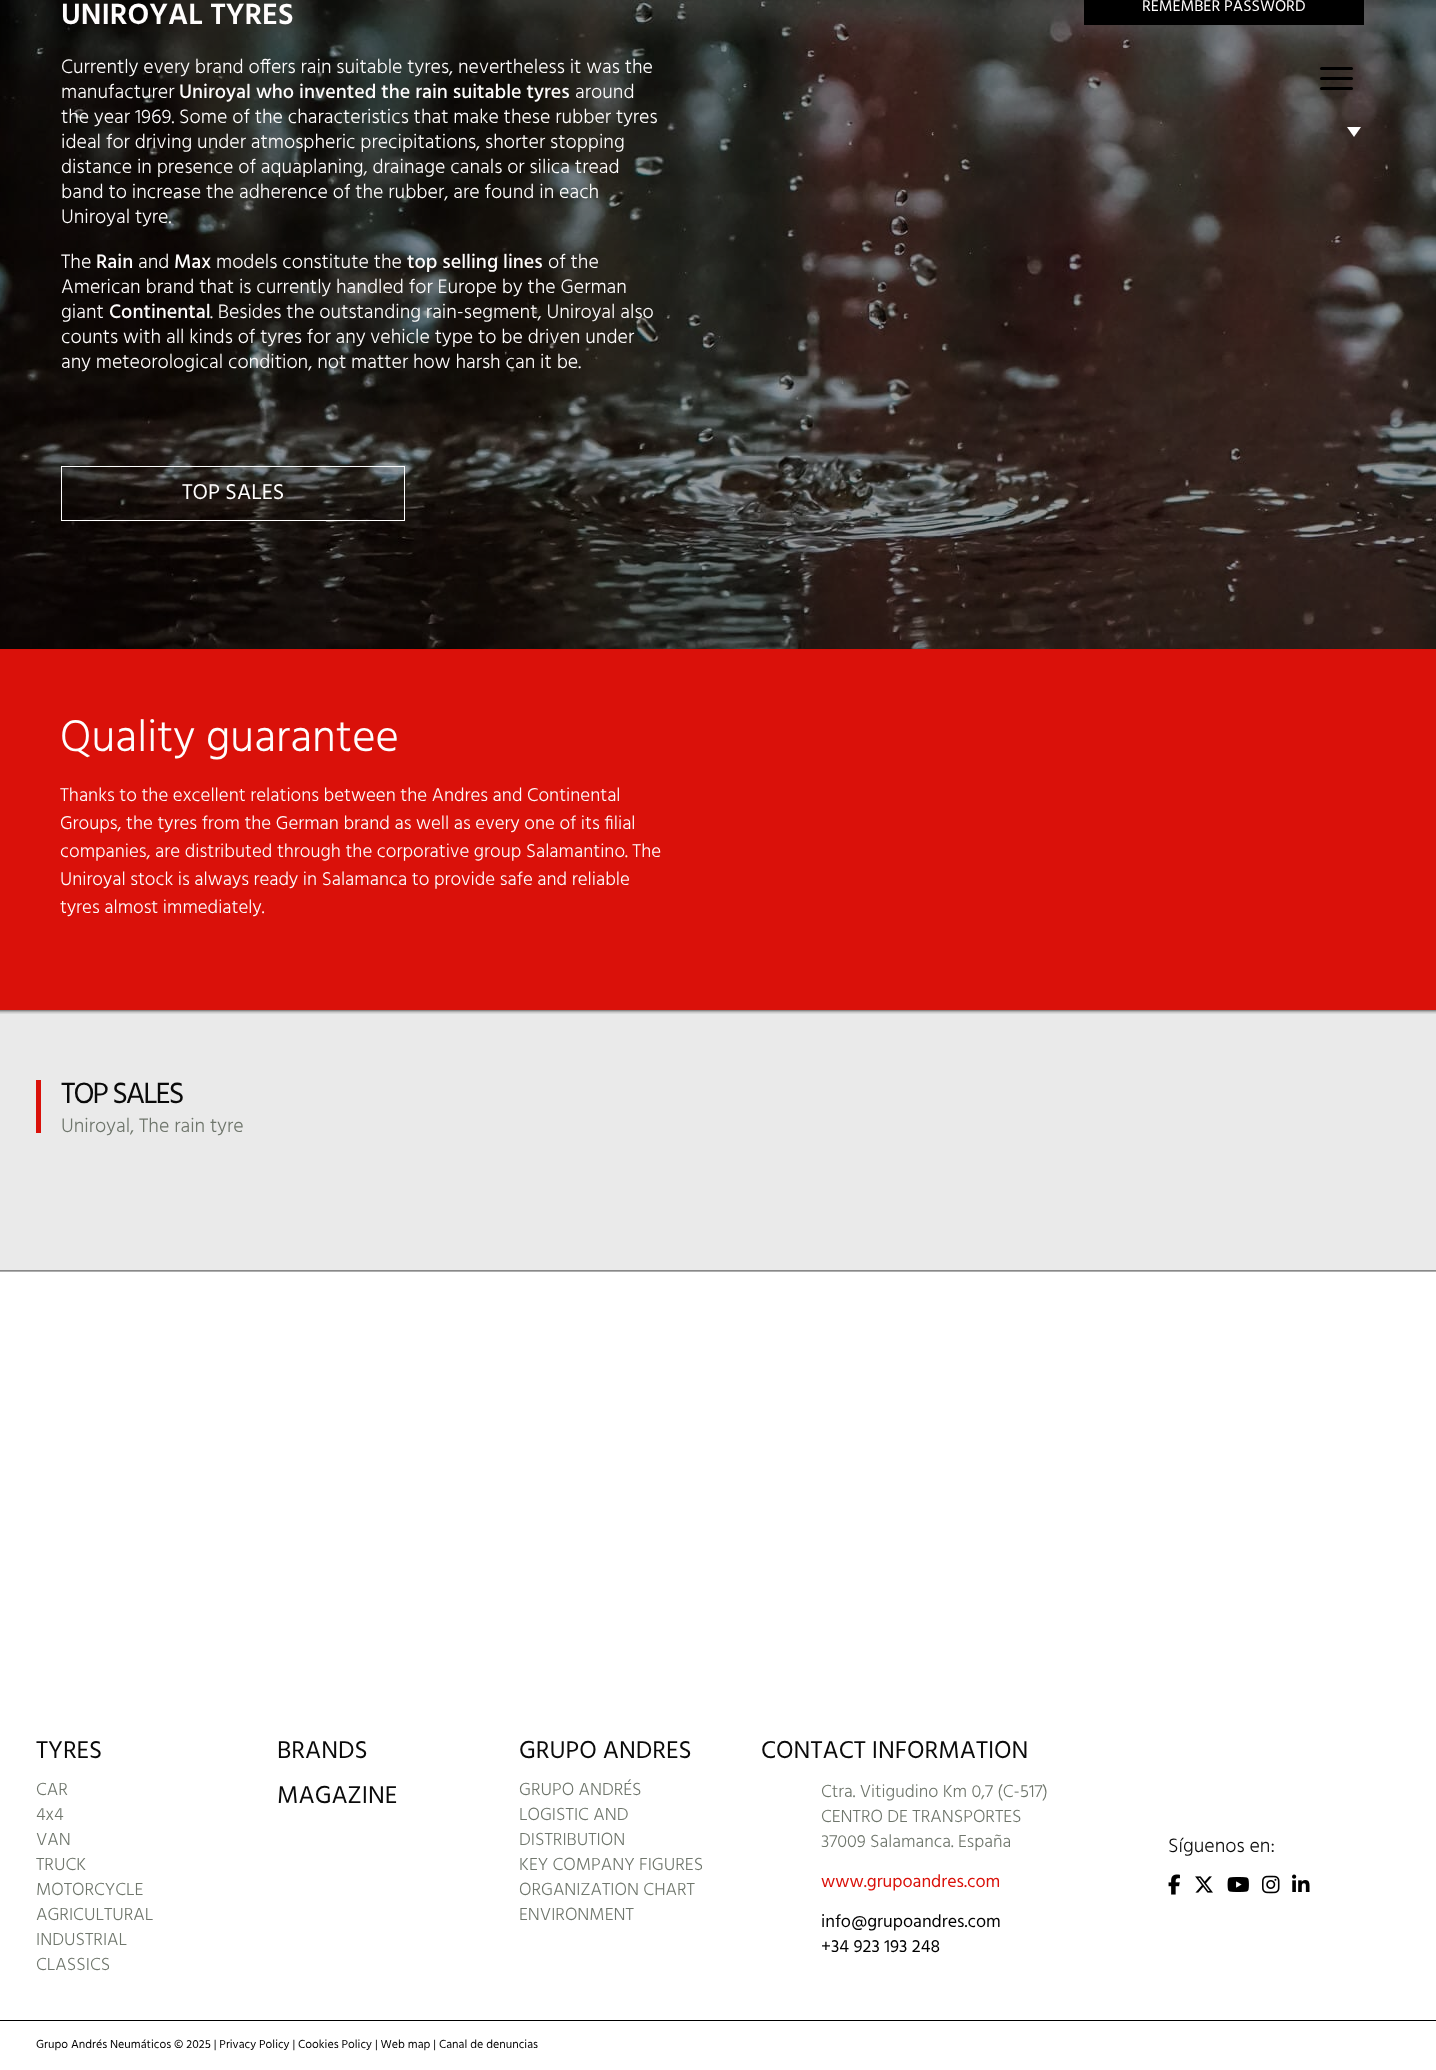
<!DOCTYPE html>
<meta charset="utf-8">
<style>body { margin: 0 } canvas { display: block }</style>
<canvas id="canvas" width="1436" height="2070"></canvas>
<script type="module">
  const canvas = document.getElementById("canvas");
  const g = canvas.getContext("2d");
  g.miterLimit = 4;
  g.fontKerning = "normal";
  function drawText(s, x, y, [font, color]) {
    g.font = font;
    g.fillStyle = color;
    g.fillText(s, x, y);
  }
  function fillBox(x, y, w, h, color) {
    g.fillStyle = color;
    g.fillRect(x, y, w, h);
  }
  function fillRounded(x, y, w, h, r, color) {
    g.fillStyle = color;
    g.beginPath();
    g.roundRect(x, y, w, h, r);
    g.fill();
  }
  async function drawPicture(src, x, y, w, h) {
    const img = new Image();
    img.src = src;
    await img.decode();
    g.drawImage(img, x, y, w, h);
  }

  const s1 = ["600 30px Hind", "#FFFDFD"];
  const s2 = ["300 20px Hind", "#FFFDFD"];
  const s3 = ["500 20px Hind", "#FFFDFD"];
  const s4 = ["22px Hind", "#FFFDFD"];
  const s5 = ["300 45px Hind", "#FFFDFD"];
  const s6 = ["300 19px Hind", "#FFFDFD"];
  const s7 = ["30px Hind", "#0A0A0A"];
  const s8 = ["300 20px Hind", "#6F766C"];
  const s9 = ["16px Hind", "#FFFDFD"];
  const s10 = ["25px Hind", "#0A0A0A"];
  const s11 = ["300 18px Hind", "#6F766C"];
  const s12 = ["18px Hind", "#DA110A"];
  const s13 = ["18px Hind", "#000000"];
  const s14 = ["300 20px Hind", "#0A0A0A"];
  const s15 = ["12px Hind", "#000000"];

  fillBox(0, 0, 1436, 2070, "#FFFFFF");
  await drawPicture("pic1.png", 0, 0, 1436, 649);
  drawText("UNIROYAL TYRES", 61, 24, s1);
  drawText("Currently every brand offers rain suitable tyres, nevertheless it was the", 61, 73, s2);
  drawText("manufacturer", 61, 98, s2);
  drawText("Uniroyal who invented the rain suitable tyres", 179, 98, s3);
  drawText("around", 575, 98, s2);
  drawText("the year 1969. Some of the characteristics that make these rubber tyres", 61, 123, s2);
  drawText("ideal for driving under atmospheric precipitations, shorter stopping", 61, 148, s2);
  drawText("distance in presence of aquaplaning, drainage canals or silica tread", 61, 173, s2);
  drawText("band to increase the adherence of the rubber, are found in each", 61, 198, s2);
  drawText("Uniroyal tyre.", 61, 223, s2);
  drawText("The", 61, 268, s2);
  drawText("Rain", 96, 268, s3);
  drawText("and", 138, 268, s2);
  drawText("Max", 174, 268, s3);
  drawText("models constitute the", 216, 268, s2);
  drawText("top selling lines", 407, 268, s3);
  drawText("of the", 548, 268, s2);
  drawText("American brand that is currently handled for Europe by the German", 61, 293, s2);
  drawText("giant", 61, 318, s2);
  drawText("Continental", 109, 318, s3);
  drawText(". Besides the outstanding rain-segment, Uniroyal also", 210, 318, s2);
  drawText("counts with all kinds of tyres for any vehicle type to be driven under", 61, 343, s2);
  drawText("any meteorological condition, not matter how harsh can it be.", 61, 368, s2);
  g.strokeStyle = "#FFFFFF";
  g.strokeRect(61.5, 466.5, 343, 54);
  drawText("TOP SALES", 182, 499, s4);
  fillBox(0, 649, 1436, 361, "#DA110A");
  drawText("Quality guarantee", 60, 751, s5);
  drawText("Thanks to the excellent relations between the Andres and Continental", 60, 801, s6);
  drawText("Groups, the tyres from the German brand as well as every one of its filial", 60, 829, s6);
  drawText("companies, are distributed through the corporative group Salamantino. The", 60, 857, s6);
  drawText("Uniroyal stock is always ready in Salamanca to provide safe and reliable", 60, 885, s6);
  drawText("tyres almost immediately.", 60, 913, s6);
  fillBox(0, 1014, 1436, 256, "#EAEAEA");
  await drawPicture("pic2.png", 0, 1010, 1436, 4);
  fillBox(36, 1080, 5, 53, "#DA110A");
  g.letterSpacing = "-2px";
  drawText("TOP SALES", 61, 1103, s7);
  g.letterSpacing = "0px";
  drawText("Uniroyal, The rain tyre", 61, 1132, s8);
  fillBox(1084, 0, 280, 25, "#000000");
  drawText("REMEMBER PASSWORD", 1142, 11, s9);
  g.fillStyle = "#FFFFFF";
  g.beginPath();
  g.moveTo(1347, 127);
  g.lineTo(1361, 127);
  g.lineTo(1354, 137);
  g.closePath();
  g.fill();
  await drawPicture("pic3.png", 0, 1270, 1436, 2);
  drawText("TYRES", 36, 1758, s10);
  drawText("CAR", 36, 1795, s11);
  drawText("4x4", 36, 1820, s11);
  drawText("VAN", 36, 1845, s11);
  drawText("TRUCK", 36, 1870, s11);
  drawText("MOTORCYCLE", 36, 1895, s11);
  drawText("AGRICULTURAL", 36, 1920, s11);
  drawText("INDUSTRIAL", 36, 1945, s11);
  drawText("CLASSICS", 36, 1970, s11);
  drawText("BRANDS", 277, 1758, s10);
  drawText("MAGAZINE", 277, 1803, s10);
  drawText("GRUPO ANDRES", 519, 1758, s10);
  drawText("GRUPO ANDRÉS", 519, 1795, s11);
  drawText("LOGISTIC AND", 519, 1820, s11);
  drawText("DISTRIBUTION", 519, 1845, s11);
  drawText("KEY COMPANY FIGURES", 519, 1870, s11);
  drawText("ORGANIZATION CHART", 519, 1895, s11);
  drawText("ENVIRONMENT", 519, 1920, s11);
  drawText("CONTACT INFORMATION", 761, 1758, s10);
  drawText("Ctra. Vitigudino Km 0,7 (C-517)", 821, 1797, s11);
  drawText("CENTRO DE TRANSPORTES", 821, 1822, s11);
  drawText("37009 Salamanca. España", 821, 1847, s11);
  drawText("www.grupoandres.com", 821, 1887, s12);
  drawText("info@grupoandres.com", 821, 1927, s13);
  drawText("+34 923 193 248", 821, 1952, s13);
  drawText("Síguenos en:", 1168, 1852, s14);
  await drawPicture("pic4.png", 1168, 1874, 12, 21);
  await drawPicture("pic5.png", 1195, 1876, 18, 17);
  await drawPicture("pic6.png", 1227, 1877, 22, 15);
  await drawPicture("pic7.png", 1262, 1875, 18, 19);
  await drawPicture("pic8.png", 1292, 1874, 18, 18);
  fillBox(0, 2020, 1436, 1, "#000000");
  drawText("Grupo Andrés Neumáticos © 2025 | Privacy Policy | Cookies Policy | Web map | Canal de denuncias", 36, 2048, s15);
  fillRounded(1320, 77, 33, 3, 1.5, "#000000");
  fillRounded(1320, 67, 33, 3, 1.5, "#000000");
  fillRounded(1320, 87, 33, 3, 1.5, "#000000");
</script>
